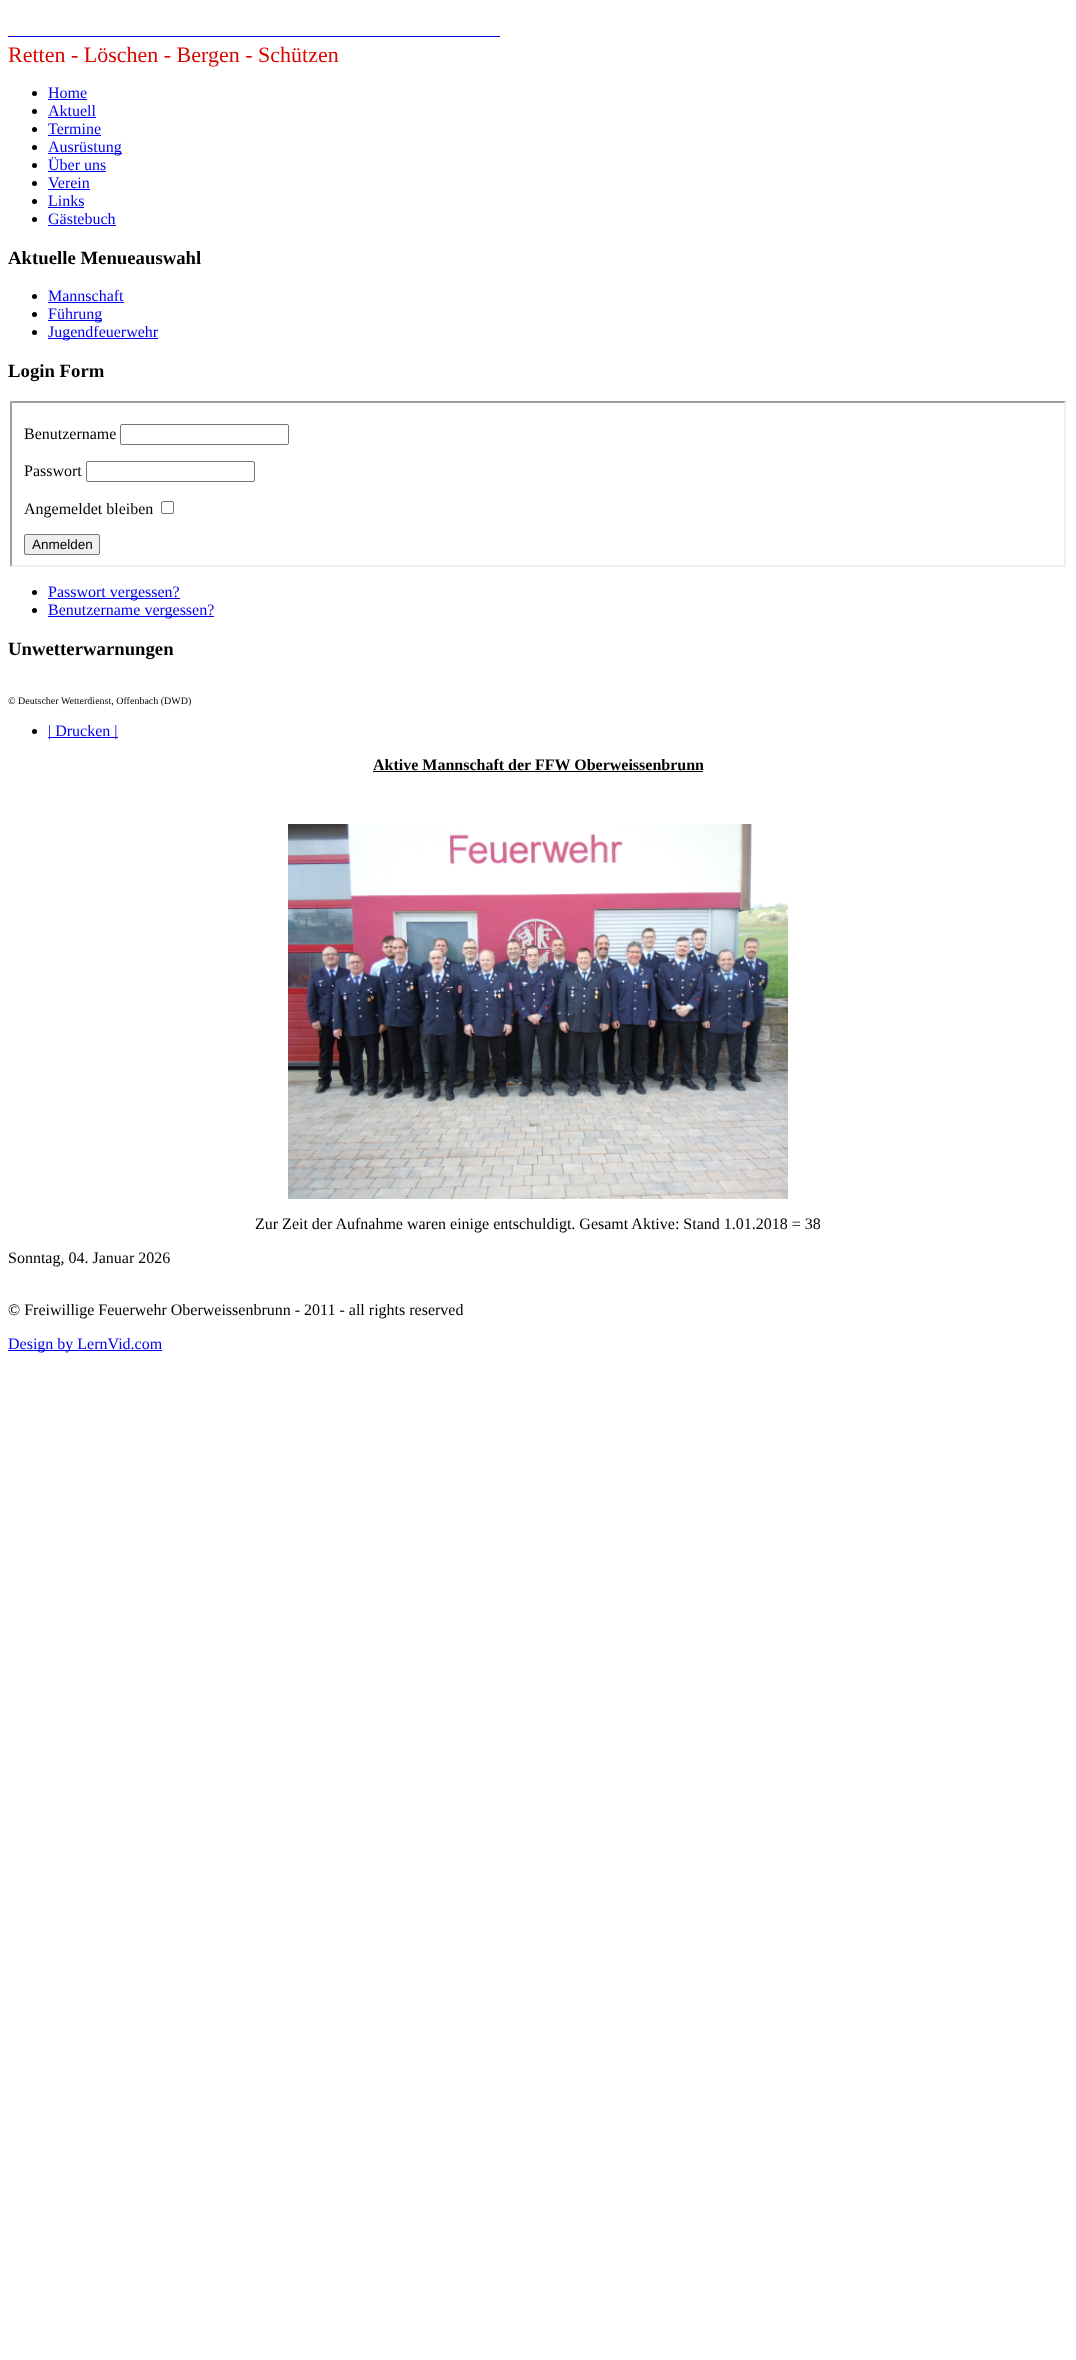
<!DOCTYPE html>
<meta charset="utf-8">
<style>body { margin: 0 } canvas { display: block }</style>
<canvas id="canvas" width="1076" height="2360"></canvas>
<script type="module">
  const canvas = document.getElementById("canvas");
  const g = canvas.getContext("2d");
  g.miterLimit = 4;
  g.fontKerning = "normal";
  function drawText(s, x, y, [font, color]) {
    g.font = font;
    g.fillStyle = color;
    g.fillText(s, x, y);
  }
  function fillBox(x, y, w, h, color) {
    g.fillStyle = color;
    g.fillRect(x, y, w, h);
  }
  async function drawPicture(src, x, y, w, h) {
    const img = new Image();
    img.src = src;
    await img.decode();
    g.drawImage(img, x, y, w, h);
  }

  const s1 = ["22px Liberation Serif", "#D60700"];
  const s2 = ["16px Liberation Serif", "#0000EE"];
  const s3 = ["bold 18.75px Liberation Serif", "#000000"];
  const s4 = ["16px Liberation Serif", "#000000"];
  const s5 = ["13.5px Liberation Sans", "#000000"];
  const s6 = ["10px Liberation Serif", "#000000"];
  const s7 = ["bold 16px Liberation Serif", "#000000"];

  fillBox(0, 0, 1076, 2360, "#FFFFFF");
  fillBox(8, 36, 492, 1, "#0000EE");
  drawText("Retten - Löschen - Bergen - Schützen", 8, 62, s1);
  g.fillStyle = "#000000";
  g.beginPath();
  g.arc(34.5, 93.5, 2.5, 0, Math.PI * 2);
  g.fill();
  drawText("Home", 48, 98, s2);
  fillBox(48, 99, 39, 1, "#0000EE");
  g.fillStyle = "#000000";
  g.beginPath();
  g.arc(34.5, 111.5, 2.5, 0, Math.PI * 2);
  g.fill();
  drawText("Aktuell", 48, 116, s2);
  fillBox(48, 117, 48, 1, "#0000EE");
  g.fillStyle = "#000000";
  g.beginPath();
  g.arc(34.5, 129.5, 2.5, 0, Math.PI * 2);
  g.fill();
  drawText("Termine", 48, 134, s2);
  fillBox(48, 135, 53, 1, "#0000EE");
  g.fillStyle = "#000000";
  g.beginPath();
  g.arc(34.5, 147.5, 2.5, 0, Math.PI * 2);
  g.fill();
  fillBox(48, 153, 74, 1, "#0000EE");
  drawText("Ausrüstung", 48, 152, s2);
  g.fillStyle = "#000000";
  g.beginPath();
  g.arc(34.5, 165.5, 2.5, 0, Math.PI * 2);
  g.fill();
  drawText("Über uns", 48, 170, s2);
  fillBox(48, 171, 58, 1, "#0000EE");
  g.fillStyle = "#000000";
  g.beginPath();
  g.arc(34.5, 183.5, 2.5, 0, Math.PI * 2);
  g.fill();
  drawText("Verein", 48, 188, s2);
  fillBox(48, 189, 42, 1, "#0000EE");
  g.fillStyle = "#000000";
  g.beginPath();
  g.arc(34.5, 201.5, 2.5, 0, Math.PI * 2);
  g.fill();
  drawText("Links", 48, 206, s2);
  fillBox(48, 207, 36, 1, "#0000EE");
  g.fillStyle = "#000000";
  g.beginPath();
  g.arc(34.5, 219.5, 2.5, 0, Math.PI * 2);
  g.fill();
  drawText("Gästebuch", 48, 224, s2);
  fillBox(48, 225, 68, 1, "#0000EE");
  drawText("Aktuelle Menueauswahl", 8, 264, s3);
  g.beginPath();
  g.arc(34.5, 296.5, 2.5, 0, Math.PI * 2);
  g.fill();
  drawText("Mannschaft", 48, 301, s2);
  fillBox(48, 302, 76, 1, "#0000EE");
  g.fillStyle = "#000000";
  g.beginPath();
  g.arc(34.5, 314.5, 2.5, 0, Math.PI * 2);
  g.fill();
  fillBox(48, 320, 54, 1, "#0000EE");
  drawText("Führung", 48, 319, s2);
  g.fillStyle = "#000000";
  g.beginPath();
  g.arc(34.5, 332.5, 2.5, 0, Math.PI * 2);
  g.fill();
  fillBox(48, 338, 110, 1, "#0000EE");
  drawText("Jugendfeuerwehr", 48, 337, s2);
  drawText("Login Form", 8, 377, s3);
  g.fillStyle = "#9F9F9F";
  g.beginPath();
  g.moveTo(10, 401);
  g.lineTo(1066, 401);
  g.lineTo(1064, 403);
  g.lineTo(12, 403);
  g.closePath();
  g.fill();
  g.fillStyle = "#EFEFEF";
  g.beginPath();
  g.moveTo(1066, 401);
  g.lineTo(1066, 567);
  g.lineTo(1064, 565);
  g.lineTo(1064, 403);
  g.closePath();
  g.fill();
  g.beginPath();
  g.moveTo(1066, 567);
  g.lineTo(10, 567);
  g.lineTo(12, 565);
  g.lineTo(1064, 565);
  g.closePath();
  g.fill();
  g.fillStyle = "#9F9F9F";
  g.beginPath();
  g.moveTo(10, 567);
  g.lineTo(10, 401);
  g.lineTo(12, 403);
  g.lineTo(12, 565);
  g.closePath();
  g.fill();
  drawText("Benutzername", 24, 439, s4);
  g.beginPath();
  g.roundRect(120.5, 424.5, 168, 20, 1.5);
  g.strokeStyle = "#767676";
  g.stroke();
  drawText("Passwort", 24, 476, s4);
  g.beginPath();
  g.roundRect(86.5, 461.5, 168, 20, 1.5);
  g.stroke();
  drawText("Angemeldet bleiben", 24, 514, s4);
  g.beginPath();
  g.roundRect(161.5, 501.5, 12, 12, 1.5);
  g.stroke();
  g.fillStyle = "#EFEFEF";
  g.beginPath();
  g.roundRect(24.5, 534.5, 75, 20, 1.5);
  g.fill();
  g.stroke();
  drawText("Anmelden", 32, 549, s5);
  g.beginPath();
  g.arc(34.5, 592.5, 2.5, 0, Math.PI * 2);
  g.fill();
  fillBox(48, 598, 132, 1, "#0000EE");
  drawText("Passwort vergessen?", 48, 597, s2);
  g.fillStyle = "#000000";
  g.beginPath();
  g.arc(34.5, 610.5, 2.5, 0, Math.PI * 2);
  g.fill();
  fillBox(48, 616, 166, 1, "#0000EE");
  drawText("Benutzername vergessen?", 48, 615, s2);
  drawText("Unwetterwarnungen", 8, 655, s3);
  drawText("© Deutscher Wetterdienst, Offenbach (DWD)", 8, 704, s6);
  g.beginPath();
  g.arc(34.5, 731.5, 2.5, 0, Math.PI * 2);
  g.fill();
  fillBox(48, 737, 70, 1, "#0000EE");
  drawText("| Drucken |", 48, 736, s2);
  drawText("Aktive Mannschaft der FFW Oberweissenbrunn", 373, 770, s7);
  fillBox(373, 771, 330, 1, "#000000");
  await drawPicture("pic1.png", 288, 824, 500, 375);
  drawText("Zur Zeit der Aufnahme waren einige entschuldigt. Gesamt Aktive: Stand 1.01.2018 = 38", 255, 1229, s4);
  drawText("Sonntag, 04. Januar 2026", 8, 1263, s4);
  drawText("© Freiwillige Feuerwehr Oberweissenbrunn - 2011 - all rights reserved", 8, 1315, s4);
  fillBox(8, 1350, 154, 1, "#0000EE");
  drawText("Design by LernVid.com", 8, 1349, s2);
</script>
